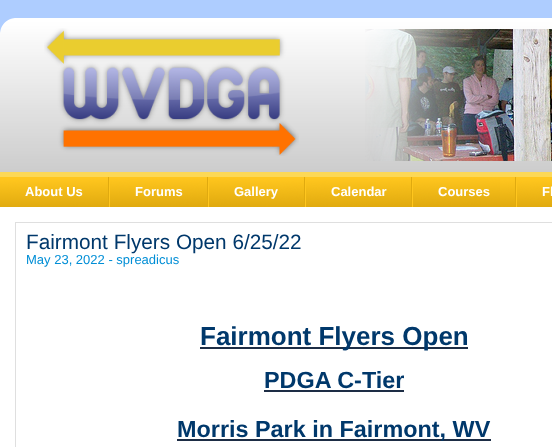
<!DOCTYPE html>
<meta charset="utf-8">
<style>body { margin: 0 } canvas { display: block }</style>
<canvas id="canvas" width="552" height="447"></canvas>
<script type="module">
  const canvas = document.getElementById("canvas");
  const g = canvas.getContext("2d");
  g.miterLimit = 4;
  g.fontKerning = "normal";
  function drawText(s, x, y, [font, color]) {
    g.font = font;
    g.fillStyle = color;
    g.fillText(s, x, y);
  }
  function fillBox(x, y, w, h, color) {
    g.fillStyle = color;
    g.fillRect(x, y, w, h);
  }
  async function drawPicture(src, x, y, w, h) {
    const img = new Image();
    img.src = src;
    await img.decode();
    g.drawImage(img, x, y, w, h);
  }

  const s1 = ["bold 13px Liberation Sans", "#FFFFFF"];
  const s2 = ["20.75px Liberation Sans", "#00386B"];
  const s3 = ["13px Liberation Sans", "#008ED6"];
  const s4 = ["bold 26px Liberation Sans", "#00386B"];
  const s5 = ["bold 23.4px Liberation Sans", "#00386B"];

  fillBox(0, 0, 552, 447, "#FFFFFF");
  await drawPicture("pic1.png", 0, 0, 552, 18);
  await drawPicture("pic2.png", 0, 18, 552, 153);
  await drawPicture("pic3.png", 0, 18, 15, 15);
  await drawPicture("pic4.png", 44, 28, 255, 128);
  await drawPicture("pic5.png", 365, 29, 187, 132);
  await drawPicture("pic6.png", 0, 171, 552, 36);
  await drawPicture("pic7.png", 108, 177, 2, 30);
  drawText("About Us", 25, 196, s1);
  await drawPicture("pic7.png", 207, 177, 2, 30);
  drawText("Forums", 135, 196, s1);
  await drawPicture("pic7.png", 304, 177, 2, 30);
  drawText("Gallery", 234, 196, s1);
  await drawPicture("pic7.png", 411, 177, 2, 30);
  drawText("Calendar", 331, 196, s1);
  await drawPicture("pic7.png", 515, 177, 2, 30);
  drawText("Courses", 438, 196, s1);
  drawText("Fl", 542, 196, s1);
  g.strokeStyle = "#DFDFDF";
  g.strokeRect(15.5, 222.5, 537, 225);
  drawText("Fairmont Flyers Open 6/25/22", 26, 249, s2);
  drawText("May 23, 2022 - spreadicus", 26, 264, s3);
  fillBox(200, 347, 268, 2, "#1D2D45");
  drawText("Fairmont Flyers Open", 200, 345, s4);
  drawText("PDGA C-Tier", 264, 388, s5);
  fillBox(264, 390, 140, 2, "#1D2D45");
  fillBox(177, 439, 314, 2, "#1D2D45");
  drawText("Morris Park in Fairmont, WV", 177, 437, s5);
</script>
